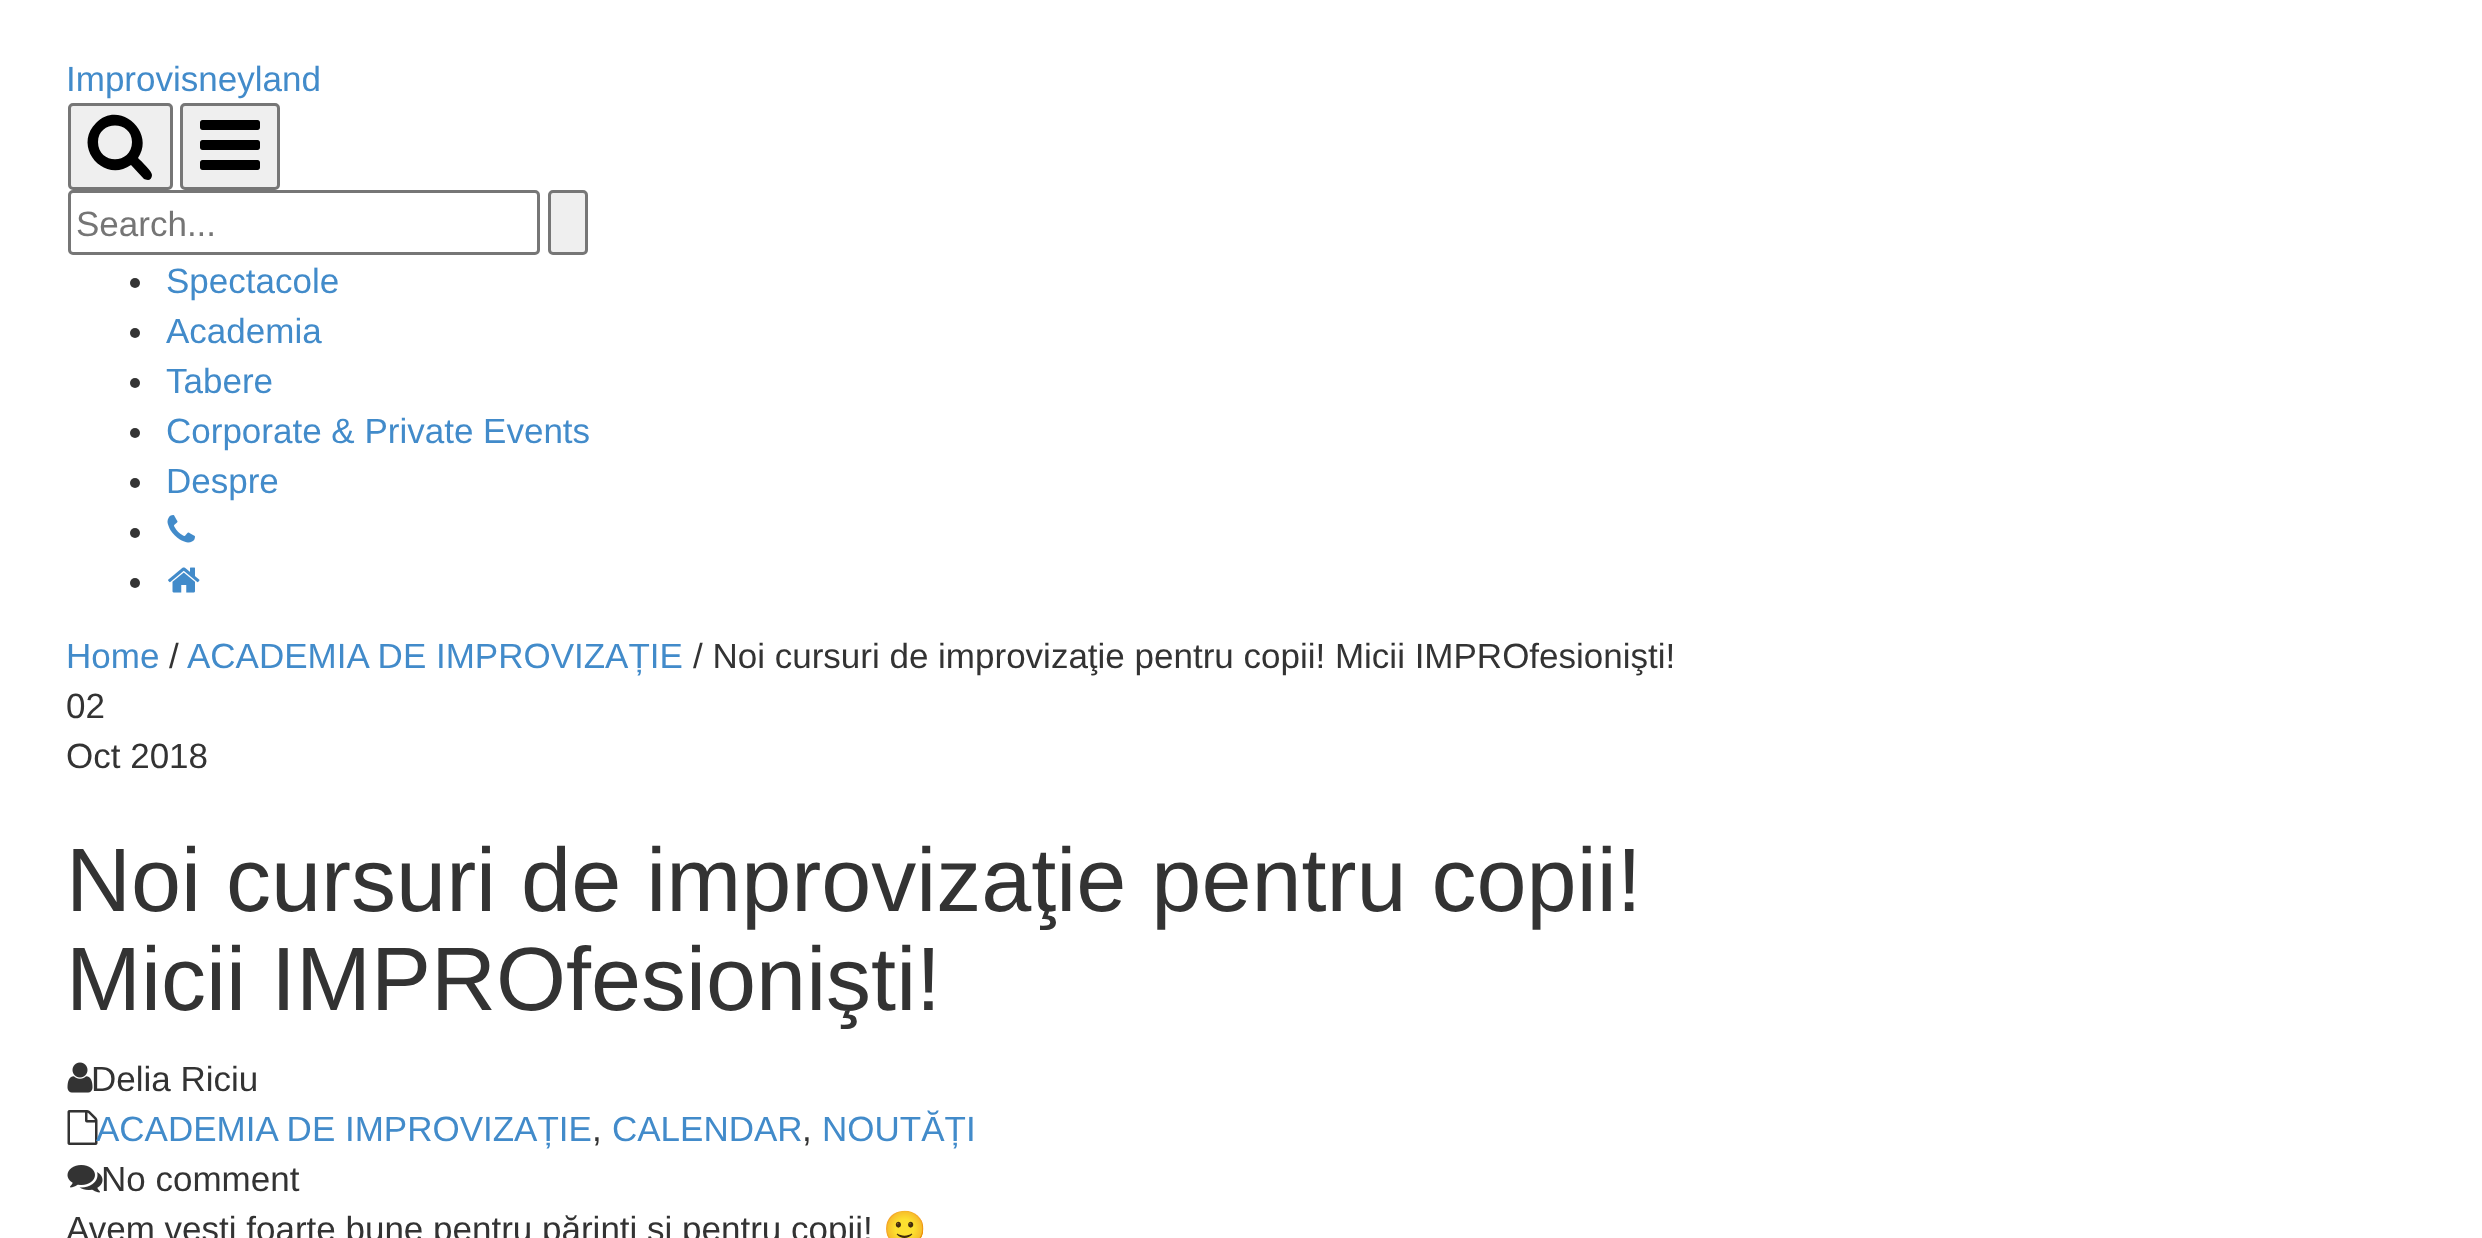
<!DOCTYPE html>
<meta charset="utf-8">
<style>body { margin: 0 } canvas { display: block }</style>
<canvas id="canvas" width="2482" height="1238"></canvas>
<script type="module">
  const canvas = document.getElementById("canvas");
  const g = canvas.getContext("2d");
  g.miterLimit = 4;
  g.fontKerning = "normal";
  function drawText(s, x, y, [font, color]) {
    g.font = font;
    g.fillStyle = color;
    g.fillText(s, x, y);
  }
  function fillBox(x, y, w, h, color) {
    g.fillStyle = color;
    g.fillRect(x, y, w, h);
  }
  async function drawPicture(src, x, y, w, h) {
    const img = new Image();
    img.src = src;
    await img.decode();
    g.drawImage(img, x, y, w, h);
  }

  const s1 = ["35px Liberation Sans", "#428BCA"];
  const s2 = ["35px Liberation Sans", "#757575"];
  const s3 = ["35px Liberation Sans", "#333333"];
  const s4 = ["90px Liberation Sans", "#333333"];
  const s5 = ["35px Noto Color Emoji", "#333333"];

  fillBox(0, 0, 2482, 1238, "#FFFFFF");
  drawText("Improvisneyland", 66, 91, s1);
  g.fillStyle = "#EFEFEF";
  g.beginPath();
  g.roundRect(69.5, 104.5, 102, 84, 3.5);
  g.fill();
  g.strokeStyle = "#767676";
  g.lineWidth = 3;
  g.stroke();
  g.fillStyle = "#000000";
  g.beginPath();
  g.moveTo(132, 142);
  g.bezierCurveTo(132, 165, 98, 165, 98, 142);
  g.bezierCurveTo(98, 120, 132, 120, 132, 142);
  g.closePath();
  g.moveTo(152, 175);
  g.bezierCurveTo(152, 171, 141, 161, 138, 158);
  g.bezierCurveTo(156, 132, 119, 99, 96, 123);
  g.bezierCurveTo(72, 147, 104, 184, 131, 165);
  g.lineTo(144, 179);
  g.bezierCurveTo(145, 179, 146, 180, 148, 180);
  g.bezierCurveTo(150, 180, 152, 178, 152, 175);
  g.closePath();
  g.fill();
  g.fillStyle = "#EFEFEF";
  g.beginPath();
  g.roundRect(181.5, 104.5, 97, 84, 3.5);
  g.fill();
  g.stroke();
  await drawPicture("pic1.png", 200, 120, 60, 50);
  g.beginPath();
  g.roundRect(69.5, 191.5, 469, 62, 3.5);
  g.stroke();
  drawText("Search...", 76, 236, s2);
  g.fillStyle = "#EFEFEF";
  g.beginPath();
  g.roundRect(549.5, 191.5, 37, 62, 3.5);
  g.fill();
  g.stroke();
  g.fillStyle = "#333333";
  g.beginPath();
  g.arc(135, 283, 5, 0, Math.PI * 2);
  g.fill();
  drawText("Spectacole", 166, 293, s1);
  g.fillStyle = "#333333";
  g.beginPath();
  g.arc(135, 333, 5, 0, Math.PI * 2);
  g.fill();
  drawText("Academia", 166, 343, s1);
  g.fillStyle = "#333333";
  g.beginPath();
  g.arc(135, 383, 5, 0, Math.PI * 2);
  g.fill();
  drawText("Tabere", 166, 393, s1);
  g.fillStyle = "#333333";
  g.beginPath();
  g.arc(135, 433, 5, 0, Math.PI * 2);
  g.fill();
  drawText("Corporate & Private Events", 166, 443, s1);
  g.fillStyle = "#333333";
  g.beginPath();
  g.arc(135, 483, 5, 0, Math.PI * 2);
  g.fill();
  drawText("Despre", 166, 493, s1);
  g.fillStyle = "#333333";
  g.beginPath();
  g.arc(135, 533, 5, 0, Math.PI * 2);
  g.fill();
  await drawPicture("pic2.png", 167, 515, 28, 28);
  g.beginPath();
  g.arc(135, 583, 5, 0, Math.PI * 2);
  g.fill();
  await drawPicture("pic3.png", 168, 567, 32, 26);
  drawText("Home", 66, 668, s1);
  drawText("/", 169, 668, s3);
  drawText("ACADEMIA DE IMPROVIZAȚIE", 187, 668, s1);
  drawText("/ Noi cursuri de improvizaţie pentru copii! Micii IMPROfesionişti!", 693, 668, s3);
  drawText("02", 66, 718, s3);
  drawText("Oct 2018", 66, 768, s3);
  drawText("Noi cursuri de improvizaţie pentru copii!", 66, 911, s4);
  drawText("Micii IMPROfesionişti!", 66, 1010, s4);
  await drawPicture("pic4.png", 67, 1062, 26, 31);
  drawText("Delia Riciu", 91, 1091, s3);
  await drawPicture("pic5.png", 67, 1110, 31, 35);
  drawText("ACADEMIA DE IMPROVIZAȚIE", 96, 1141, s1);
  drawText(",", 592, 1141, s3);
  drawText("CALENDAR", 612, 1141, s1);
  drawText(",", 802, 1141, s3);
  drawText("NOUTĂȚI", 822, 1141, s1);
  await drawPicture("pic6.png", 67, 1165, 36, 28);
  drawText("No comment", 101, 1191, s3);
  drawText("Avem veşti foarte bune pentru părinţi şi pentru copii!", 66, 1241, s3);
  drawText("🙂", 883, 1241, s5);
</script>
